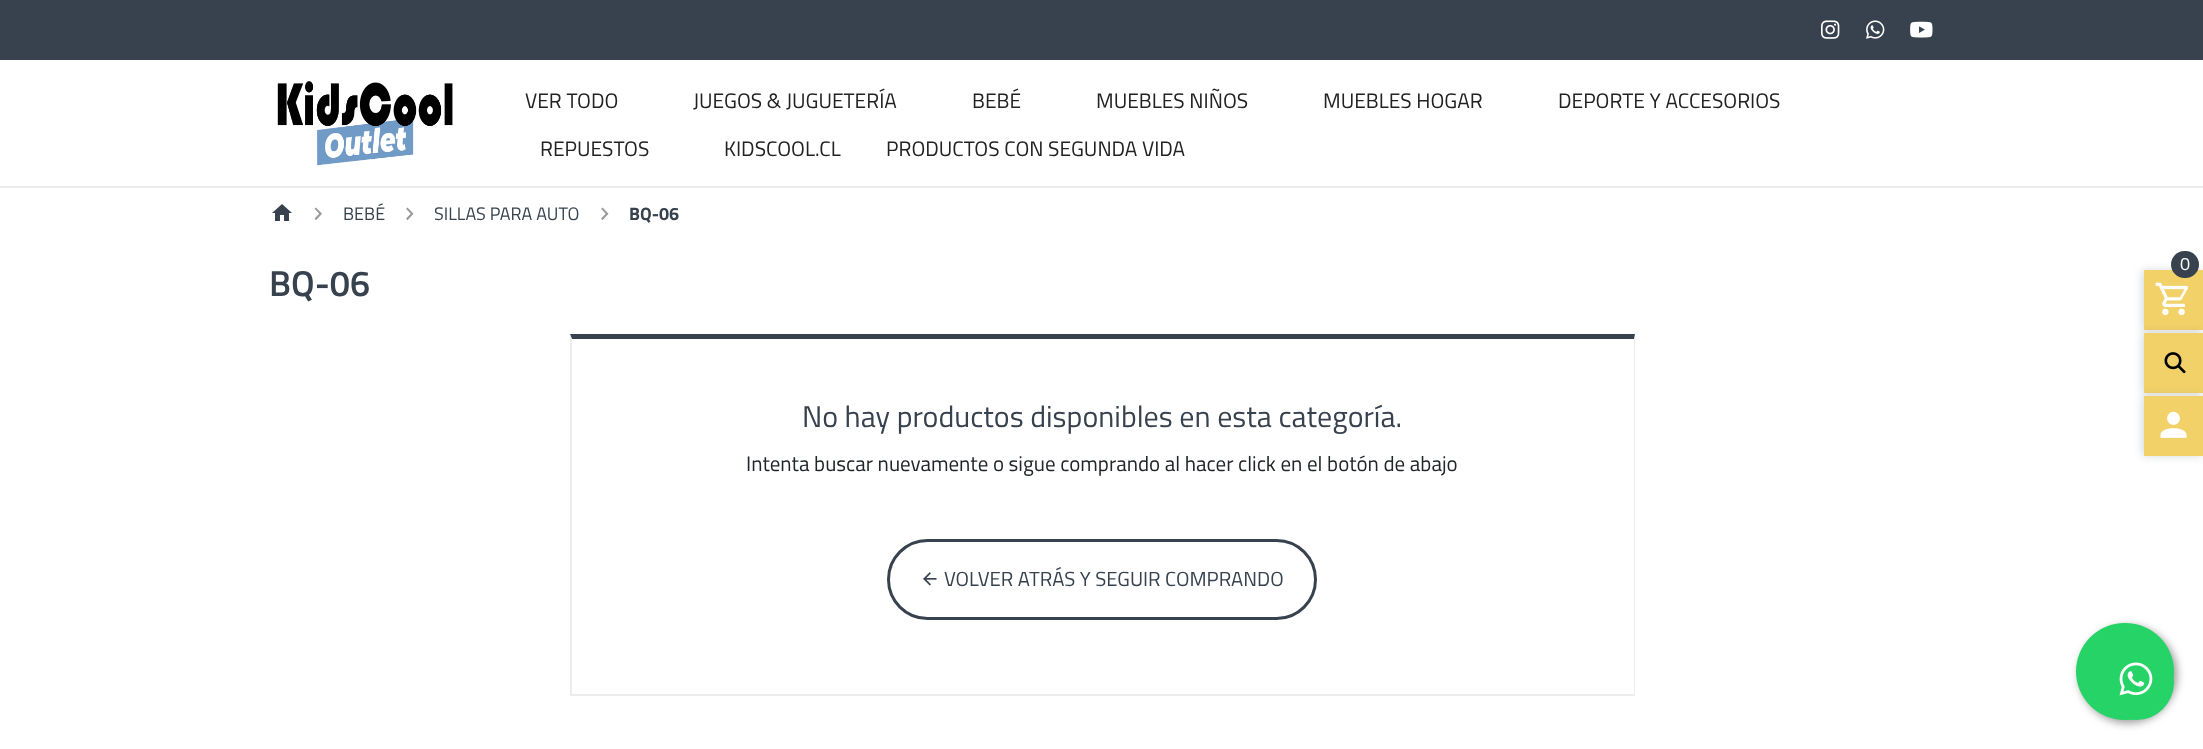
<!DOCTYPE html>
<meta charset="utf-8">
<style>body { margin: 0 } canvas { display: block }</style>
<canvas id="canvas" width="2203" height="749"></canvas>
<script type="module">
  const canvas = document.getElementById("canvas");
  const g = canvas.getContext("2d");
  g.miterLimit = 4;
  g.fontKerning = "normal";
  function drawText(s, x, y, [font, color]) {
    g.font = font;
    g.fillStyle = color;
    g.fillText(s, x, y);
  }
  function fillBox(x, y, w, h, color) {
    g.fillStyle = color;
    g.fillRect(x, y, w, h);
  }
  function fillRounded(x, y, w, h, r, color) {
    g.fillStyle = color;
    g.beginPath();
    g.roundRect(x, y, w, h, r);
    g.fill();
  }
  async function drawPicture(src, x, y, w, h) {
    const img = new Image();
    img.src = src;
    await img.decode();
    g.drawImage(img, x, y, w, h);
  }

  const s1 = ["21px Titillium Web", "#222222"];
  const s2 = ["18px Titillium Web", "#37424E"];
  const s3 = ["bold 18px Titillium Web", "#37424E"];
  const s4 = ["18px Titillium Web", "#FFFFFF"];
  const s5 = ["600 36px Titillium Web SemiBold", "#37424E"];
  const s6 = ["30px Titillium Web", "#37424E"];
  const s7 = ["21px Titillium Web", "#212529"];
  const s8 = ["20.4px Titillium Web", "#37424E"];

  fillBox(0, 0, 2203, 749, "#FFFFFF");
  fillBox(0, 0, 2203, 60, "#37424E");
  await drawPicture("pic1.png", 1821, 20, 19, 19);
  await drawPicture("pic2.png", 1866, 20, 19, 19);
  await drawPicture("pic3.png", 1910, 21, 23, 17);
  fillBox(0, 186, 2203, 2, "#EDEDED");
  await drawPicture("pic4.png", 277, 81, 176, 85);
  drawText("VER TODO", 525, 108, s1);
  drawText("JUEGOS & JUGUETERÍA", 693, 108, s1);
  drawText("BEBÉ", 972, 108, s1);
  drawText("MUEBLES NIÑOS", 1096, 108, s1);
  drawText("MUEBLES HOGAR", 1323, 108, s1);
  drawText("DEPORTE Y ACCESORIOS", 1558, 108, s1);
  drawText("REPUESTOS", 540, 156, s1);
  drawText("KIDSCOOL.CL", 724, 156, s1);
  drawText("PRODUCTOS CON SEGUNDA VIDA", 886, 156, s1);
  await drawPicture("pic5.png", 272, 204, 20, 17);
  await drawPicture("pic6.png", 314, 207, 8, 13);
  drawText("BEBÉ", 343, 220, s2);
  await drawPicture("pic7.png", 406, 207, 8, 13);
  drawText("SILLAS PARA AUTO", 434, 220, s2);
  await drawPicture("pic7.png", 601, 207, 8, 13);
  drawText("BQ-06", 629, 220, s3);
  g.fillStyle = "rgba(55, 66, 78, 0.2)";
  g.filter = "blur(4.5px)";
  g.beginPath();
  g.rect(2142, 270, 60, 60);
  g.fill();
  g.filter = "none";
  fillBox(2144, 270, 59, 60, "#F1D168");
  fillRounded(2171, 251, 28, 27, 13.5, "#37424E");
  drawText("0", 2180, 270, s4);
  await drawPicture("pic8.png", 2155, 282, 34, 34);
  g.fillStyle = "rgba(55, 66, 78, 0.2)";
  g.filter = "blur(4.5px)";
  g.beginPath();
  g.rect(2142, 333, 60, 60);
  g.fill();
  g.filter = "none";
  fillBox(2144, 333, 59, 60, "#F1D168");
  await drawPicture("pic9.png", 2164, 352, 22, 22);
  g.fillStyle = "rgba(55, 66, 78, 0.2)";
  g.filter = "blur(4.5px)";
  g.beginPath();
  g.rect(2142, 396, 60, 60);
  g.fill();
  g.filter = "none";
  fillBox(2144, 396, 59, 60, "#F1D168");
  await drawPicture("pic10.png", 2160, 411, 27, 27);
  drawText("BQ-06", 269, 296, s5);
  g.beginPath();
  g.moveTo(570, 334);
  g.lineTo(1635, 334);
  g.lineTo(1634, 339);
  g.lineTo(572, 339);
  g.closePath();
  g.fill();
  g.fillStyle = "rgba(211, 211, 211, 0.4)";
  g.beginPath();
  g.moveTo(1635, 334);
  g.lineTo(1635, 696);
  g.lineTo(1634, 694);
  g.lineTo(1634, 339);
  g.closePath();
  g.fill();
  g.beginPath();
  g.moveTo(1635, 696);
  g.lineTo(570, 696);
  g.lineTo(572, 694);
  g.lineTo(1634, 694);
  g.closePath();
  g.fill();
  g.beginPath();
  g.moveTo(570, 696);
  g.lineTo(570, 334);
  g.lineTo(572, 339);
  g.lineTo(572, 694);
  g.closePath();
  g.fill();
  drawText("No hay productos disponibles en esta categoría.", 802, 427, s6);
  drawText("Intenta buscar nuevamente o sigue comprando al hacer click en el botón de abajo", 746, 471, s7);
  g.beginPath();
  g.roundRect(888.5, 540.5, 427, 78, 39);
  g.strokeStyle = "#37424E";
  g.lineWidth = 3;
  g.stroke();
  await drawPicture("pic11.png", 923, 572, 14, 14);
  drawText("VOLVER ATRÁS Y SEGUIR COMPRANDO", 944, 586, s8);
  g.fillStyle = "#999999";
  g.filter = "blur(4px)";
  g.beginPath();
  g.roundRect(2079, 626, 98, 97, 48.5);
  g.fill();
  g.filter = "none";
  fillRounded(2076, 623, 98, 97, 48.5, "#25D366");
  g.beginPath();
  g.arc(2136.5, 682.5, 37.5, 0, Math.PI * 2);
  g.fill();
  await drawPicture("pic12.png", 2119, 662, 34, 34);
</script>
